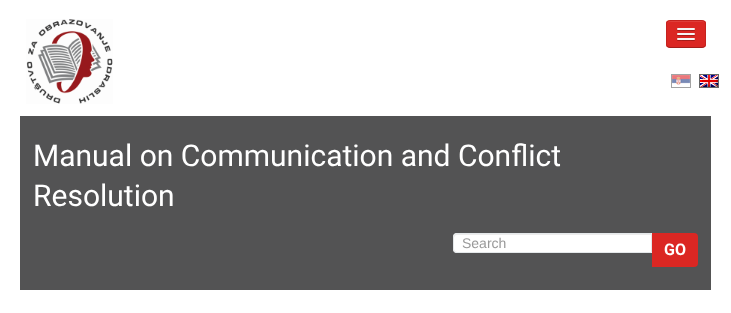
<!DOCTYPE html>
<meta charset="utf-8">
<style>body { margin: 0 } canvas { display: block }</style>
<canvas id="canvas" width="731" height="313"></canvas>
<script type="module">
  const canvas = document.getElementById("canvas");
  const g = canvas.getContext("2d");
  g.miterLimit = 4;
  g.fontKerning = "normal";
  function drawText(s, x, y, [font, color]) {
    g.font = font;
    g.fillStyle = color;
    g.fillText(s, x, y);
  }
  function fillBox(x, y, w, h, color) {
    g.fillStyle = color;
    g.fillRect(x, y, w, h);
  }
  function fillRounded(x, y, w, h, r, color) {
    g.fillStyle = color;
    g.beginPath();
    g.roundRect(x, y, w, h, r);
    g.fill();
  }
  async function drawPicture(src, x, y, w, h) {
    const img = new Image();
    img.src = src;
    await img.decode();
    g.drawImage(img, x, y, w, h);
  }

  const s1 = ["30px Roboto", "#FFFFFF"];
  const s2 = ["14px Liberation Sans", "#999999"];
  const s3 = ["bold 16px Roboto", "#FFFFFF"];

  fillBox(0, 0, 731, 313, "#FFFFFF");
  await drawPicture("pic1.png", 26, 19, 87, 85);
  fillRounded(666, 20, 40, 28, 4, "#DB2723");
  g.save();
  g.beginPath();
  g.roundRect(666, 20, 40, 28, 4);
  g.clip();
  fillBox(666, 21, 40, 26, "#DB2723");
  g.restore();
  g.fillStyle = "#DF3D39";
  g.beginPath();
  g.moveTo(670, 22);
  g.lineTo(702, 22);
  g.bezierCurveTo(704, 22, 705, 23, 705, 25);
  g.bezierCurveTo(705, 20, 701, 21, 696.5, 21);
  g.lineTo(675.5, 21);
  g.bezierCurveTo(671, 21, 667, 20, 667, 25);
  g.bezierCurveTo(667, 23, 668, 22, 670, 22);
  g.closePath();
  g.fill();
  g.beginPath();
  g.moveTo(704.5, 46.5);
  g.bezierCurveTo(704, 47, 703, 47.5, 702, 47.5);
  g.lineTo(670, 47.5);
  g.bezierCurveTo(669, 47.5, 668, 47, 667.5, 46.5);
  g.strokeStyle = "rgba(0, 0, 0, 0.25)";
  g.stroke();
  g.beginPath();
  g.moveTo(667.5, 46.5);
  g.bezierCurveTo(667, 46, 666.5, 45, 666.5, 44);
  g.lineTo(666.5, 24);
  g.bezierCurveTo(666.5, 23, 667, 22, 667.5, 21.5);
  g.bezierCurveTo(668, 21, 669, 20.5, 670, 20.5);
  g.lineTo(702, 20.5);
  g.bezierCurveTo(703, 20.5, 704, 21, 704.5, 21.5);
  g.bezierCurveTo(705, 22, 705.5, 23, 705.5, 24);
  g.lineTo(705.5, 44);
  g.bezierCurveTo(705.5, 45, 705, 46, 704.5, 46.5);
  g.strokeStyle = "rgba(0, 0, 0, 0.1)";
  g.stroke();
  g.fillStyle = "#A41D1A";
  g.beginPath();
  g.moveTo(677, 29.5);
  g.bezierCurveTo(676, 31.5, 680.5, 31, 680.5, 31);
  g.lineTo(691.5, 31);
  g.bezierCurveTo(691.5, 31, 696, 31.5, 695, 29.5);
  g.bezierCurveTo(694, 30.5, 687.5, 30, 686, 30);
  g.bezierCurveTo(684.5, 30, 678, 30.5, 677, 29.5);
  g.closePath();
  g.fill();
  fillRounded(677, 28, 18, 2, 1, "#F5F5F5");
  g.fillStyle = "#A41D1A";
  g.beginPath();
  g.moveTo(677, 34.5);
  g.bezierCurveTo(676, 36.5, 680.5, 36, 680.5, 36);
  g.lineTo(691.5, 36);
  g.bezierCurveTo(691.5, 36, 696, 36.5, 695, 34.5);
  g.bezierCurveTo(694, 35.5, 687.5, 35, 686, 35);
  g.bezierCurveTo(684.5, 35, 678, 35.5, 677, 34.5);
  g.closePath();
  g.fill();
  fillRounded(677, 33, 18, 2, 1, "#F5F5F5");
  g.fillStyle = "#A41D1A";
  g.beginPath();
  g.moveTo(677, 39.5);
  g.bezierCurveTo(676, 41.5, 680.5, 41, 680.5, 41);
  g.lineTo(691.5, 41);
  g.bezierCurveTo(691.5, 41, 696, 41.5, 695, 39.5);
  g.bezierCurveTo(694, 40.5, 687.5, 40, 686, 40);
  g.bezierCurveTo(684.5, 40, 678, 40.5, 677, 39.5);
  g.closePath();
  g.fill();
  fillRounded(677, 38, 18, 2, 1, "#F5F5F5");
  g.strokeStyle = "#A3A3A3";
  g.strokeRect(671.5, 74.5, 19, 13);
  g.strokeStyle = "#666666";
  g.strokeRect(699.5, 74.5, 19, 13);
  await drawPicture("pic2.png", 672, 75, 18, 10);
  await drawPicture("pic3.png", 700, 75, 18, 12);
  fillBox(20, 116, 691, 174, "#535354");
  drawText("Manual on Communication and Conflict", 33, 166, s1);
  drawText("Resolution", 33, 206, s1);
  g.beginPath();
  g.roundRect(453, 233, 199, 20, [4, 0, 0, 4]);
  g.fill();
  g.fillStyle = "#ECECEC";
  g.beginPath();
  g.moveTo(457, 235);
  g.lineTo(651, 235);
  g.lineTo(651, 234);
  g.lineTo(457, 234);
  g.bezierCurveTo(454, 234, 454, 236, 454, 238);
  g.bezierCurveTo(454, 237, 455, 235, 457, 235);
  g.closePath();
  g.fill();
  g.beginPath();
  g.roundRect(453.5, 233.5, 198, 19, [3.5, 0, 0, 3.5]);
  g.strokeStyle = "#E4E8EA";
  g.stroke();
  drawText("Search", 462, 248, s2);
  g.fillStyle = "#DB2723";
  g.beginPath();
  g.roundRect(652, 233, 46, 34, [0, 4, 4, 0]);
  g.fill();
  drawText("GO", 664, 255, s3);
</script>
